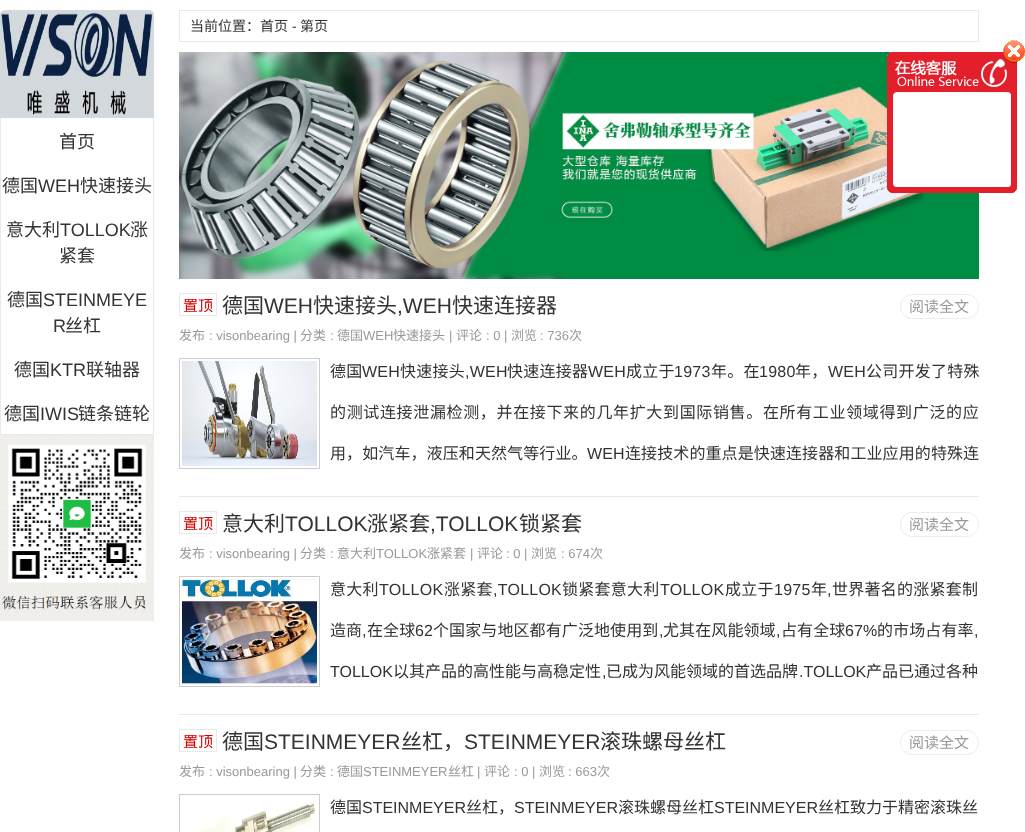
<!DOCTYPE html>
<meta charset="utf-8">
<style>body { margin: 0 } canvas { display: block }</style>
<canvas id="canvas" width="1025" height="832"></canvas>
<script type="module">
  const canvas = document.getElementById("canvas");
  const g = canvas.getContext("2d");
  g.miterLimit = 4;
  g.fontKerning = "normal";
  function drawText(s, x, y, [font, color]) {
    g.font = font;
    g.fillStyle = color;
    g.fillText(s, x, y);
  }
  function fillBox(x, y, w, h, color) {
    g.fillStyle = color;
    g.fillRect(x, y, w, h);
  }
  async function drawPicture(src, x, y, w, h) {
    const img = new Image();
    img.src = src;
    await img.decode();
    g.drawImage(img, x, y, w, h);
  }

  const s1 = ["14px Noto Sans CJK SC", "#333333"];
  const s2 = ["14px Liberation Sans", "#333333"];
  const s3 = ["15px Noto Sans CJK SC", "#D10101"];
  const s4 = ["21px Noto Sans CJK SC", "#333333"];
  const s5 = ["21px Liberation Sans", "#333333"];
  const s6 = ["15px Noto Sans CJK SC", "#999999"];
  const s7 = ["13px Noto Sans CJK SC", "#999999"];
  const s8 = ["13px Liberation Sans", "#999999"];
  const s9 = ["16px Noto Sans CJK SC", "#333333"];
  const s10 = ["16px Liberation Sans", "#333333"];
  const s11 = ["18px Noto Sans CJK SC", "#333333"];
  const s12 = ["18px Liberation Sans", "#333333"];

  fillBox(0, 0, 1025, 832, "#FFFFFF");
  g.strokeStyle = "#E9E9E9";
  g.strokeRect(179.5, 10.5, 799, 31);
  drawText("当前位置：首页", 190, 31, s1);
  drawText("-", 292, 31, s2);
  drawText("第页", 300, 31, s1);
  await drawPicture("pic1.png", 179, 52, 800, 227);
  fillBox(179, 496, 800, 1, "#E9E9E9");
  g.strokeRect(179.5, 293.5, 37, 22);
  drawText("置顶", 183, 311, s3);
  drawText("德国", 222, 313, s4);
  drawText("WEH", 264, 313, s5);
  drawText("快速接头", 313, 313, s4);
  drawText(",WEH", 397, 313, s5);
  drawText("快速连接器", 452, 313, s4);
  g.beginPath();
  g.roundRect(900.5, 294.5, 78, 24, 11.5);
  g.strokeStyle = "#EDEDED";
  g.stroke();
  drawText("阅读全文", 909, 312, s6);
  drawText("发布", 179, 340, s7);
  drawText(": visonbearing |", 209, 340, s8);
  drawText("分类", 300, 340, s7);
  drawText(":", 330, 340, s8);
  drawText("德国", 337, 340, s7);
  drawText("WEH", 363, 340, s8);
  drawText("快速接头", 393, 340, s7);
  drawText("|", 449, 340, s8);
  drawText("评论", 456, 340, s7);
  drawText(": 0 |", 486, 340, s8);
  drawText("浏览", 511, 340, s7);
  drawText(": 736", 540, 340, s8);
  drawText("次", 569, 340, s7);
  g.strokeStyle = "#CCCCCC";
  g.strokeRect(179.5, 358.5, 140, 110);
  await drawPicture("pic2.png", 182, 361, 135, 105);
  g.letterSpacing = "0.25px";
  drawText("德国", 330, 377, s9);
  drawText("WEH", 362, 377, s10);
  drawText("快速接头", 400, 377, s9);
  drawText(",WEH", 465, 377, s10);
  drawText("快速连接器", 507, 377, s9);
  drawText("WEH", 588, 377, s10);
  drawText("成立于", 626, 377, s9);
  drawText("1973", 674, 377, s10);
  drawText("年。在", 711, 377, s9);
  drawText("1980", 759, 377, s10);
  drawText("年，", 795, 377, s9);
  drawText("WEH", 828, 377, s10);
  drawText("公司开发了特殊", 866, 377, s9);
  g.letterSpacing = "0.65px";
  drawText("的测试连接泄漏检测，并在接下来的几年扩大到国际销售。在所有工业领域得到广泛的应", 330, 418, s9);
  g.letterSpacing = "0.1px";
  drawText("用，如汽车，液压和天然气等行业。", 330, 459, s9);
  drawText("WEH", 587, 459, s10);
  drawText("连接技术的重点是快速连接器和工业应用的特殊连", 625, 459, s9);
  fillBox(179, 714, 800, 1, "#E9E9E9");
  g.strokeStyle = "#E9E9E9";
  g.strokeRect(179.5, 511.5, 37, 22);
  g.letterSpacing = "0px";
  drawText("置顶", 183, 529, s3);
  drawText("意大利", 222, 531, s4);
  drawText("TOLLOK", 285, 531, s5);
  drawText("涨紧套", 367, 531, s4);
  drawText(",TOLLOK", 430, 531, s5);
  drawText("锁紧套", 519, 531, s4);
  g.beginPath();
  g.roundRect(900.5, 512.5, 78, 24, 11.5);
  g.strokeStyle = "#EDEDED";
  g.stroke();
  drawText("阅读全文", 909, 530, s6);
  drawText("发布", 179, 558, s7);
  drawText(": visonbearing |", 209, 558, s8);
  drawText("分类", 300, 558, s7);
  drawText(":", 330, 558, s8);
  drawText("意大利", 337, 558, s7);
  drawText("TOLLOK", 376, 558, s8);
  drawText("涨紧套", 427, 558, s7);
  drawText("|", 470, 558, s8);
  drawText("评论", 477, 558, s7);
  drawText(": 0 |", 506, 558, s8);
  drawText("浏览", 531, 558, s7);
  drawText(": 674", 561, 558, s8);
  drawText("次", 590, 558, s7);
  g.strokeStyle = "#CCCCCC";
  g.strokeRect(179.5, 576.5, 140, 110);
  await drawPicture("pic3.png", 182, 579, 135, 105);
  g.letterSpacing = "0.25px";
  drawText("意大利", 330, 595, s9);
  drawText("TOLLOK", 379, 595, s10);
  drawText("涨紧套", 444, 595, s9);
  drawText(",TOLLOK", 493, 595, s10);
  drawText("锁紧套意大利", 562, 595, s9);
  drawText("TOLLOK", 660, 595, s10);
  drawText("成立于", 725, 595, s9);
  drawText("1975", 774, 595, s10);
  drawText("年", 811, 595, s9);
  drawText(",", 827, 595, s10);
  drawText("世界著名的涨紧套制", 832, 595, s9);
  g.letterSpacing = "0.1px";
  drawText("造商", 330, 636, s9);
  drawText(",", 362, 636, s10);
  drawText("在全球", 367, 636, s9);
  drawText("62", 415, 636, s10);
  drawText("个国家与地区都有广泛地使用到", 433, 636, s9);
  drawText(",", 659, 636, s10);
  drawText("尤其在风能领域", 663, 636, s9);
  drawText(",", 776, 636, s10);
  drawText("占有全球", 781, 636, s9);
  drawText("67%", 845, 636, s10);
  drawText("的市场占有率", 877, 636, s9);
  drawText(",", 974, 636, s10);
  g.letterSpacing = "0px";
  drawText("TOLLOK", 330, 677, s10);
  drawText("以其产品的高性能与高稳定性", 393, 677, s9);
  drawText(",", 602, 677, s10);
  drawText("已成为风能领域的首选品牌", 606, 677, s9);
  drawText(".TOLLOK", 799, 677, s10);
  drawText("产品已通过各种", 866, 677, s9);
  g.strokeStyle = "#E9E9E9";
  g.strokeRect(179.5, 729.5, 37, 22);
  drawText("置顶", 183, 747, s3);
  drawText("德国", 222, 749, s4);
  drawText("STEINMEYER", 264, 749, s5);
  drawText("丝杠，", 401, 749, s4);
  drawText("STEINMEYER", 464, 749, s5);
  drawText("滚珠螺母丝杠", 600, 749, s4);
  g.beginPath();
  g.roundRect(900.5, 730.5, 78, 24, 11.5);
  g.strokeStyle = "#EDEDED";
  g.stroke();
  drawText("阅读全文", 909, 748, s6);
  drawText("发布", 179, 776, s7);
  drawText(": visonbearing |", 209, 776, s8);
  drawText("分类", 300, 776, s7);
  drawText(":", 330, 776, s8);
  drawText("德国", 337, 776, s7);
  drawText("STEINMEYER", 363, 776, s8);
  drawText("丝杠", 448, 776, s7);
  drawText("|", 477, 776, s8);
  drawText("评论", 484, 776, s7);
  drawText(": 0 |", 514, 776, s8);
  drawText("浏览", 539, 776, s7);
  drawText(": 663", 568, 776, s8);
  drawText("次", 597, 776, s7);
  g.strokeStyle = "#CCCCCC";
  g.strokeRect(179.5, 794.5, 140, 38);
  await drawPicture("pic4.png", 198, 803, 119, 29);
  drawText("德国", 330, 813, s9);
  drawText("STEINMEYER", 362, 813, s10);
  drawText("丝杠，", 466, 813, s9);
  drawText("STEINMEYER", 514, 813, s10);
  drawText("滚珠螺母丝杠", 618, 813, s9);
  drawText("STEINMEYER", 714, 813, s10);
  drawText("丝杠致力于精密滚珠丝", 818, 813, s9);
  await drawPicture("pic5.png", 887, 183, 130, 10);
  await drawPicture("pic6.png", 887, 40, 138, 58);
  await drawPicture("pic7.png", 887, 98, 130, 85);
  await drawPicture("pic8.png", 0, 10, 154, 108);
  fillBox(153, 118, 1, 317, "#E9E9E9");
  fillBox(0, 434, 154, 1, "#E9E9E9");
  fillBox(0, 118, 1, 317, "#E9E9E9");
  drawText("首页", 59, 148, s11);
  drawText("德国", 2, 192, s11);
  drawText("WEH", 38, 192, s12);
  drawText("快速接头", 80, 192, s11);
  drawText("意大利", 6, 236, s11);
  drawText("TOLLOK", 60, 236, s12);
  drawText("涨", 130, 236, s11);
  drawText("紧套", 59, 262, s11);
  drawText("德国", 7, 306, s11);
  drawText("STEINMEYE", 43, 306, s12);
  drawText("R", 53, 332, s12);
  drawText("丝杠", 65, 332, s11);
  drawText("德国", 14, 376, s11);
  drawText("KTR", 50, 376, s12);
  drawText("联轴器", 86, 376, s11);
  drawText("德国", 4, 420, s11);
  drawText("IWIS", 40, 420, s12);
  drawText("链条链轮", 78, 420, s11);
  await drawPicture("pic9.png", 0, 435, 154, 186);
</script>
